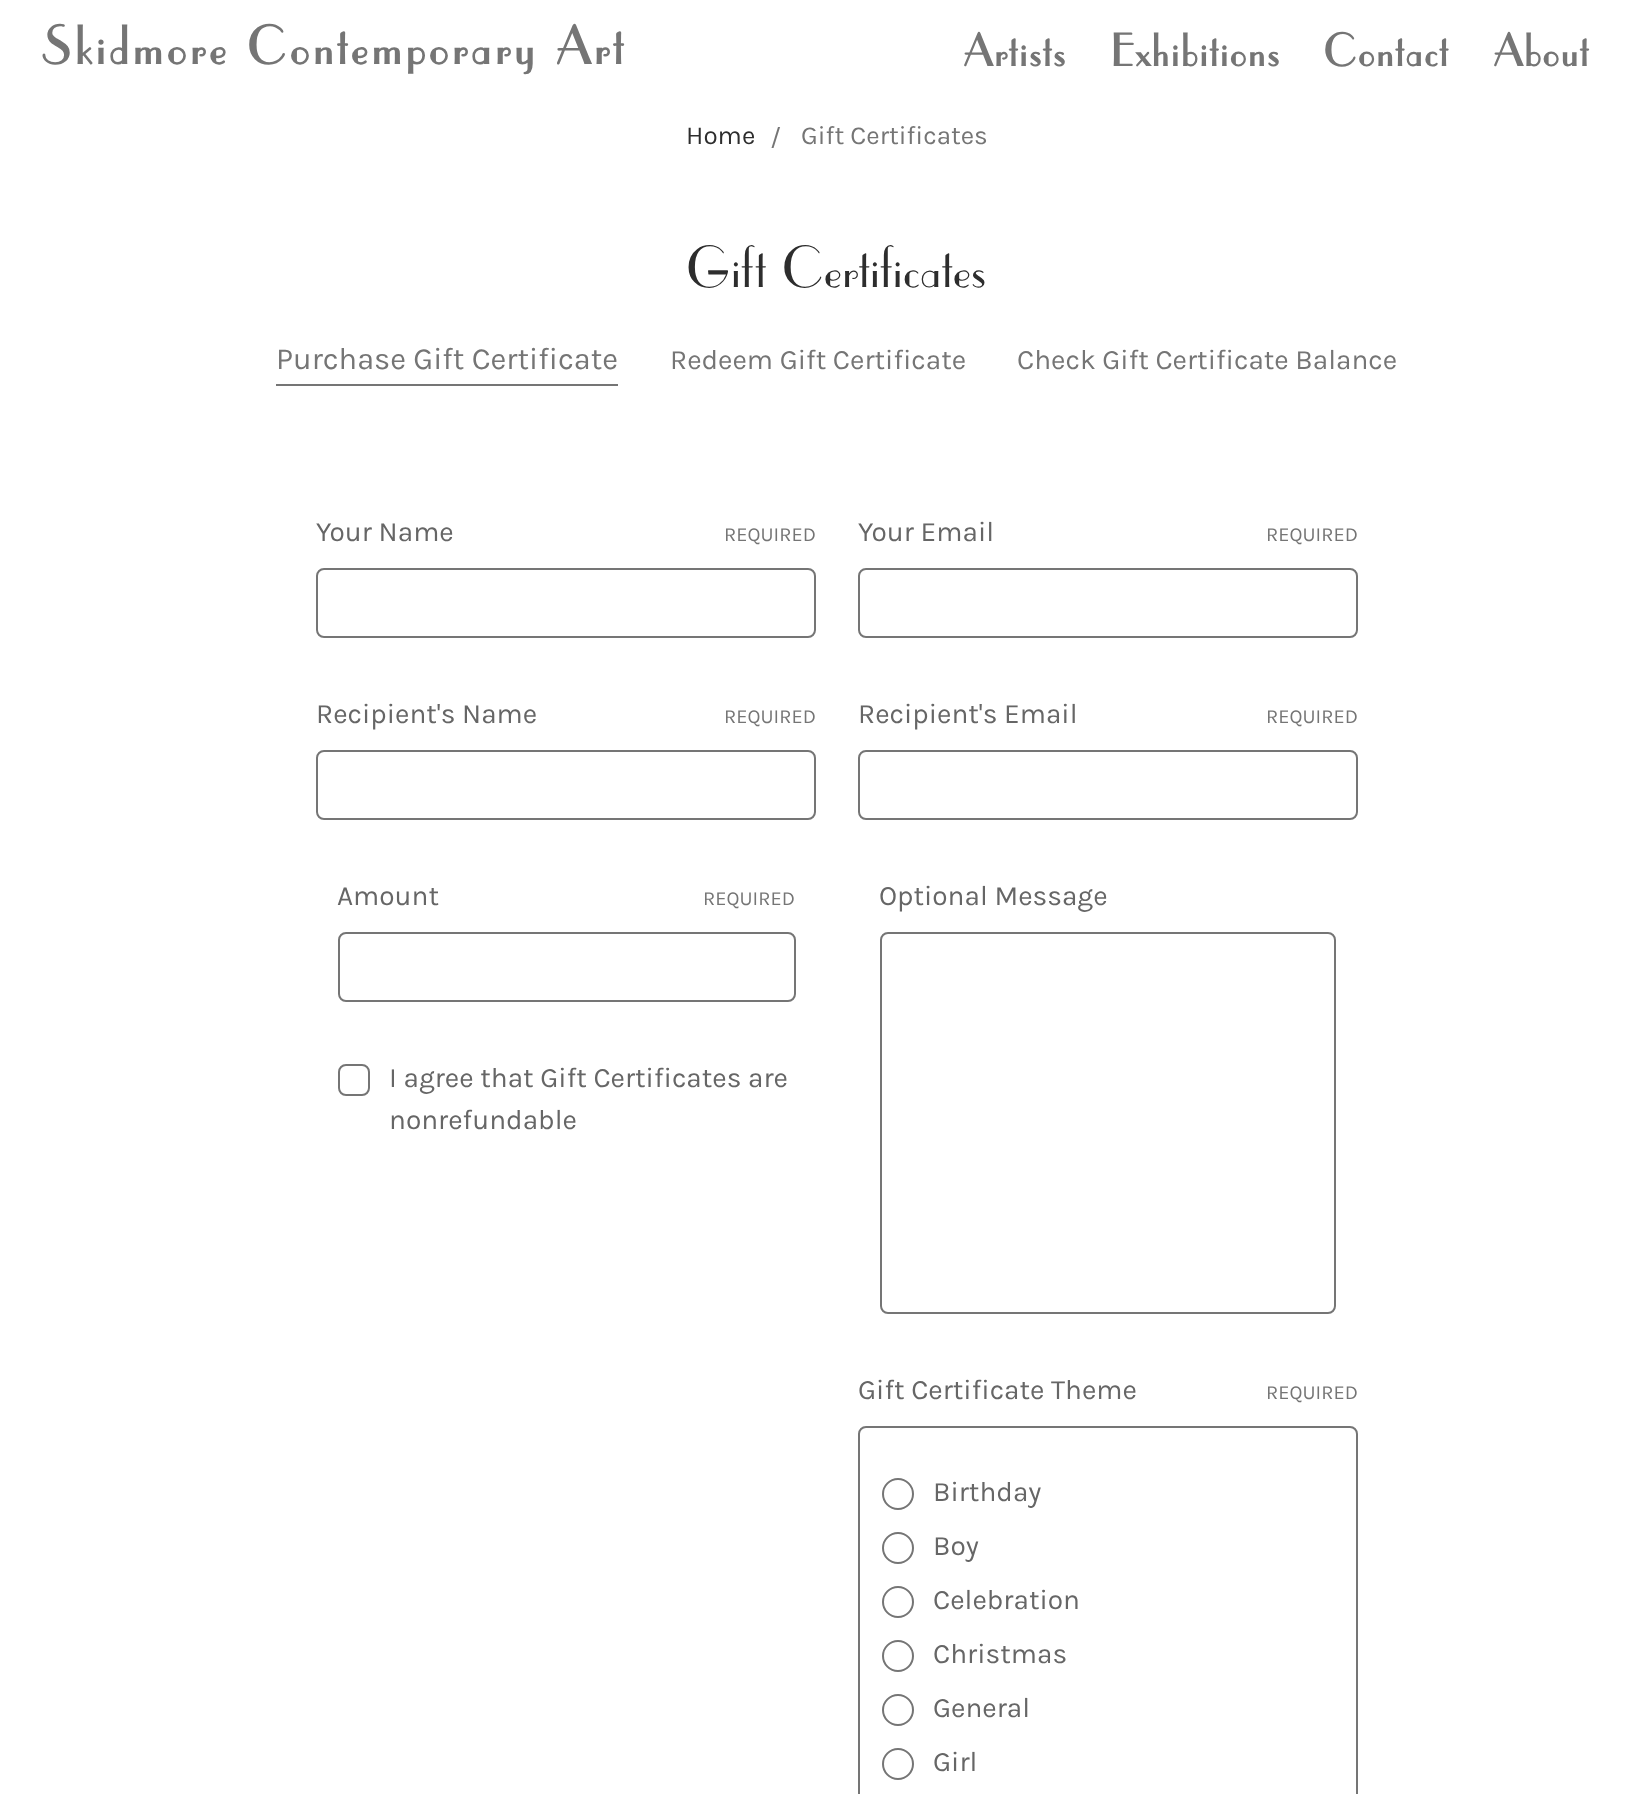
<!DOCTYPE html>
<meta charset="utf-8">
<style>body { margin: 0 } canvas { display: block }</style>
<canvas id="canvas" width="1645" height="1794"></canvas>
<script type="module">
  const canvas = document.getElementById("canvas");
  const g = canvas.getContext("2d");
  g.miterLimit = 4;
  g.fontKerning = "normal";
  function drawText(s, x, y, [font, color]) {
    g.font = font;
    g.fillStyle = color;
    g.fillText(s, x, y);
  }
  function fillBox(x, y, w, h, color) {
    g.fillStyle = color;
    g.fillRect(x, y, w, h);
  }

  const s1 = ["bold 52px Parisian", "#757575"];
  const s2 = ["bold 44px Parisian", "#757575"];
  const s3 = ["26px Karla", "#2D2D2D"];
  const s4 = ["26px Karla", "#757575"];
  const s5 = ["56px Parisian", "#2D2D2D"];
  const s6 = ["30.75px Karla", "#757575"];
  const s7 = ["28px Karla", "#757575"];
  const s8 = ["28px Karla", "#666666"];
  const s9 = ["20px Karla", "#757575"];

  fillBox(0, 0, 1645, 1794, "#FFFFFF");
  g.letterSpacing = "4px";
  drawText("Skidmore Contemporary Art", 42, 64, s1);
  g.letterSpacing = "2px";
  drawText("Artists", 964, 66, s2);
  drawText("Exhibitions", 1111, 66, s2);
  drawText("Contact", 1324, 66, s2);
  drawText("About", 1494, 66, s2);
  g.letterSpacing = "0px";
  drawText("Home", 686, 144, s3);
  drawText("/", 770, 146, s4);
  drawText("Gift Certificates", 801, 144, s4);
  g.letterSpacing = "0.5px";
  drawText("Gift Certificates", 687, 287, s5);
  fillBox(276, 384, 342, 2, "#757575");
  g.letterSpacing = "0px";
  drawText("Purchase Gift Certificate", 276, 369, s6);
  drawText("Redeem Gift Certificate", 670, 369, s7);
  drawText("Check Gift Certificate Balance", 1017, 369, s7);
  drawText("Your Name", 316, 541, s8);
  drawText("REQUIRED", 724, 541, s9);
  g.beginPath();
  g.roundRect(317, 569, 498, 68, 7);
  g.strokeStyle = "#757575";
  g.lineWidth = 2;
  g.stroke();
  drawText("Your Email", 858, 541, s8);
  drawText("REQUIRED", 1266, 541, s9);
  g.beginPath();
  g.roundRect(859, 569, 498, 68, 7);
  g.stroke();
  drawText("Recipient's Name", 316, 723, s8);
  drawText("REQUIRED", 724, 723, s9);
  g.beginPath();
  g.roundRect(317, 751, 498, 68, 7);
  g.stroke();
  drawText("Recipient's Email", 858, 723, s8);
  drawText("REQUIRED", 1266, 723, s9);
  g.beginPath();
  g.roundRect(859, 751, 498, 68, 7);
  g.stroke();
  drawText("Amount", 337, 905, s8);
  drawText("REQUIRED", 703, 905, s9);
  g.beginPath();
  g.roundRect(339, 933, 456, 68, 7);
  g.stroke();
  g.beginPath();
  g.roundRect(339, 1065, 30, 30, 7);
  g.stroke();
  drawText("I agree that Gift Certificates are", 389, 1087, s8);
  drawText("nonrefundable", 389, 1129, s8);
  drawText("Optional Message", 879, 905, s8);
  g.beginPath();
  g.roundRect(881, 933, 454, 380, 7);
  g.stroke();
  drawText("Gift Certificate Theme", 858, 1399, s8);
  drawText("REQUIRED", 1266, 1399, s9);
  g.beginPath();
  g.roundRect(859, 1427, 498, 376, 7);
  g.stroke();
  g.beginPath();
  g.arc(898, 1494, 15, 0, Math.PI * 2);
  g.stroke();
  drawText("Birthday", 933, 1501, s8);
  g.beginPath();
  g.arc(898, 1548, 15, 0, Math.PI * 2);
  g.stroke();
  drawText("Boy", 933, 1555, s8);
  g.beginPath();
  g.arc(898, 1602, 15, 0, Math.PI * 2);
  g.stroke();
  drawText("Celebration", 933, 1609, s8);
  g.beginPath();
  g.arc(898, 1656, 15, 0, Math.PI * 2);
  g.stroke();
  drawText("Christmas", 933, 1663, s8);
  g.beginPath();
  g.arc(898, 1710, 15, 0, Math.PI * 2);
  g.stroke();
  drawText("General", 933, 1717, s8);
  g.beginPath();
  g.arc(898, 1764, 15, 0, Math.PI * 2);
  g.stroke();
  drawText("Girl", 933, 1771, s8);
</script>
